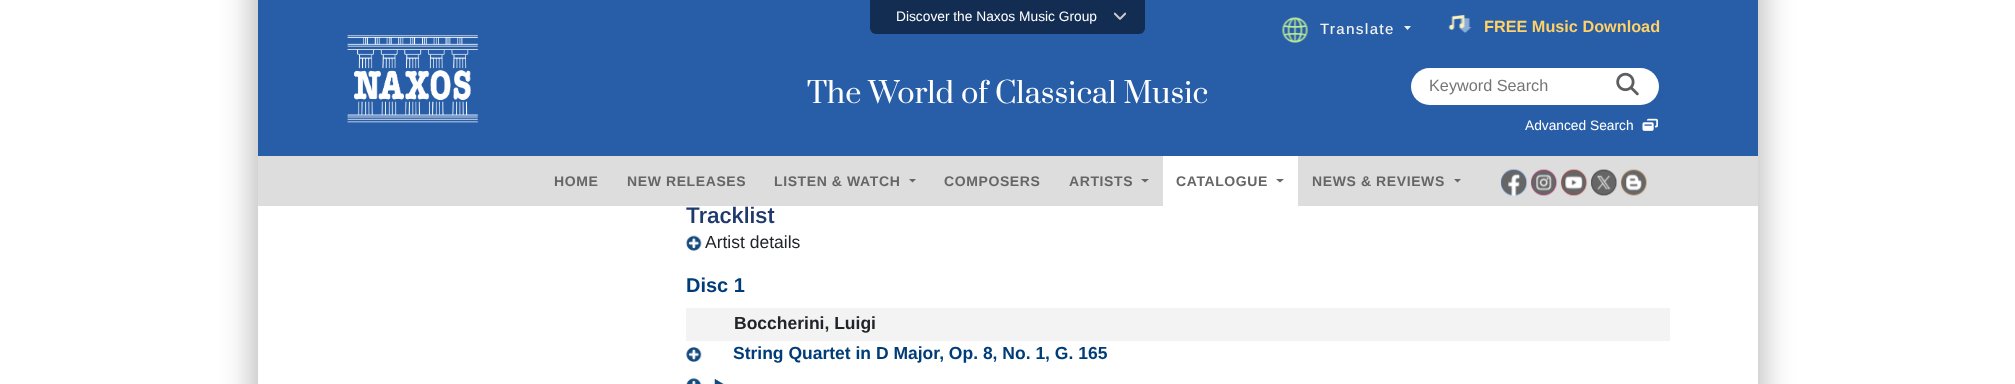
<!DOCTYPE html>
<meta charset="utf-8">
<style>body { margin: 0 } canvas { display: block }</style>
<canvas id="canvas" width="2015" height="384"></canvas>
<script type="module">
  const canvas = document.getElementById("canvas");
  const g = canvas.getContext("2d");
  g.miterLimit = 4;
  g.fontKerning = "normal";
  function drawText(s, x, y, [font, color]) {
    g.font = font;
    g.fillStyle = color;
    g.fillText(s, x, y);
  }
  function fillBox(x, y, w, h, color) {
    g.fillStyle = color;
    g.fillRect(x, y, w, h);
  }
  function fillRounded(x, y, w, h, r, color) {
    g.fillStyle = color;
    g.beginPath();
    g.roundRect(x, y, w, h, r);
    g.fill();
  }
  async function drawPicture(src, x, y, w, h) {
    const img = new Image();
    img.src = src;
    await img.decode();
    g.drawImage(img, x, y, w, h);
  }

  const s1 = ["13.75px Arimo", "#FFFFFF"];
  const s2 = ["28.75px Prata", "#FFFFFF"];
  const s3 = ["500 15px Arimo", "#F1F1F1"];
  const s4 = ["bold 16.25px Arimo", "#FFD166"];
  const s5 = ["16.25px Arimo", "#757575"];
  const s6 = ["bold 14px Arimo", "#666666"];
  const s7 = ["600 22.5px Arimo", "#1E3A6C"];
  const s8 = ["17.5px Arimo", "#212529"];
  const s9 = ["bold 20px Arimo", "#003D78"];
  const s10 = ["bold 17.5px Arimo", "#212529"];
  const s11 = ["bold 17.5px Arimo", "#003D78"];

  fillBox(0, 0, 2015, 384, "#FFFFFF");
  g.save();
  g.beginPath();
  g.moveTo(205, 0);
  g.lineTo(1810, 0);
  g.lineTo(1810, 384);
  g.lineTo(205, 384);
  g.closePath();
  g.moveTo(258, -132);
  g.lineTo(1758, -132);
  g.lineTo(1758, 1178);
  g.lineTo(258, 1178);
  g.closePath();
  g.clip("evenodd");
  g.fillStyle = "rgba(0, 0, 0, 0.25)";
  g.filter = "blur(15px)";
  g.beginPath();
  g.rect(251, -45, 1513, 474);
  g.fill();
  g.filter = "none";
  g.restore();
  fillBox(258, 0, 1500, 156, "#285EA8");
  g.fillStyle = "#132D52";
  g.beginPath();
  g.roundRect(870, 0, 275, 34, [0, 0, 6, 6]);
  g.fill();
  drawText("Discover the Naxos Music Group", 896, 21, s1);
  await drawPicture("pic1.png", 1114, 12, 12, 8);
  await drawPicture("pic2.png", 347, 35, 132, 88);
  drawText("The World of Classical Music", 807, 103, s2);
  await drawPicture("pic3.png", 1282, 17, 26, 26);
  g.letterSpacing = "1.25px";
  drawText("Translate", 1320, 34, s3);
  g.beginPath();
  g.moveTo(1404, 26);
  g.lineTo(1411, 26);
  g.lineTo(1407.5, 30);
  g.closePath();
  g.fill();
  await drawPicture("pic4.png", 1448, 15, 24, 18);
  g.letterSpacing = "0px";
  drawText("FREE Music Download", 1484, 32, s4);
  fillRounded(1411, 68, 248, 37, 18.5, "#FFFFFF");
  drawText("Keyword Search", 1429, 91, s5);
  await drawPicture("pic5.png", 1616, 72, 23, 24);
  drawText("Advanced Search", 1525, 130, s1);
  await drawPicture("pic6.png", 1642, 118, 16, 13);
  fillBox(258, 156, 1500, 50, "#DDDDDD");
  g.letterSpacing = "0.6px";
  drawText("HOME", 554, 186, s6);
  drawText("NEW RELEASES", 627, 186, s6);
  drawText("LISTEN & WATCH", 774, 186, s6);
  g.beginPath();
  g.moveTo(909, 179);
  g.lineTo(916, 179);
  g.lineTo(912.5, 182.5);
  g.closePath();
  g.fill();
  drawText("COMPOSERS", 944, 186, s6);
  drawText("ARTISTS", 1069, 186, s6);
  g.beginPath();
  g.moveTo(1141, 179);
  g.lineTo(1149, 179);
  g.lineTo(1145, 182.5);
  g.closePath();
  g.fill();
  fillBox(1163, 156, 135, 50, "#FFFFFF");
  drawText("CATALOGUE", 1176, 186, s6);
  g.beginPath();
  g.moveTo(1276, 179);
  g.lineTo(1284, 179);
  g.lineTo(1280, 182.5);
  g.closePath();
  g.fill();
  drawText("NEWS & REVIEWS", 1312, 186, s6);
  g.beginPath();
  g.moveTo(1454, 179);
  g.lineTo(1461, 179);
  g.lineTo(1457.5, 182.5);
  g.closePath();
  g.fill();
  await drawPicture("pic7.png", 1501, 169, 26, 27);
  await drawPicture("pic8.png", 1501, 169, 26, 27);
  await drawPicture("pic9.png", 1531, 169, 26, 27);
  await drawPicture("pic10.png", 1531, 169, 26, 27);
  await drawPicture("pic11.png", 1561, 169, 26, 27);
  await drawPicture("pic12.png", 1561, 169, 26, 27);
  await drawPicture("pic13.png", 1591, 169, 26, 27);
  await drawPicture("pic14.png", 1591, 169, 26, 27);
  await drawPicture("pic15.png", 1621, 169, 26, 27);
  await drawPicture("pic16.png", 1621, 169, 26, 27);
  g.letterSpacing = "0px";
  drawText("Tracklist", 686, 223, s7);
  await drawPicture("pic17.png", 686, 235, 16, 16);
  drawText("Artist details", 705, 248, s8);
  drawText("Disc 1", 686, 292, s9);
  fillBox(686, 308, 984, 33, "#F3F3F3");
  drawText("Boccherini, Luigi", 734, 329, s10);
  await drawPicture("pic18.png", 686, 347, 16, 15);
  drawText("String Quartet in D Major, Op. 8, No. 1, G. 165", 733, 359, s11);
  await drawPicture("pic19.png", 686, 378, 16, 6);
  await drawPicture("pic20.png", 714, 379, 10, 5);
</script>
